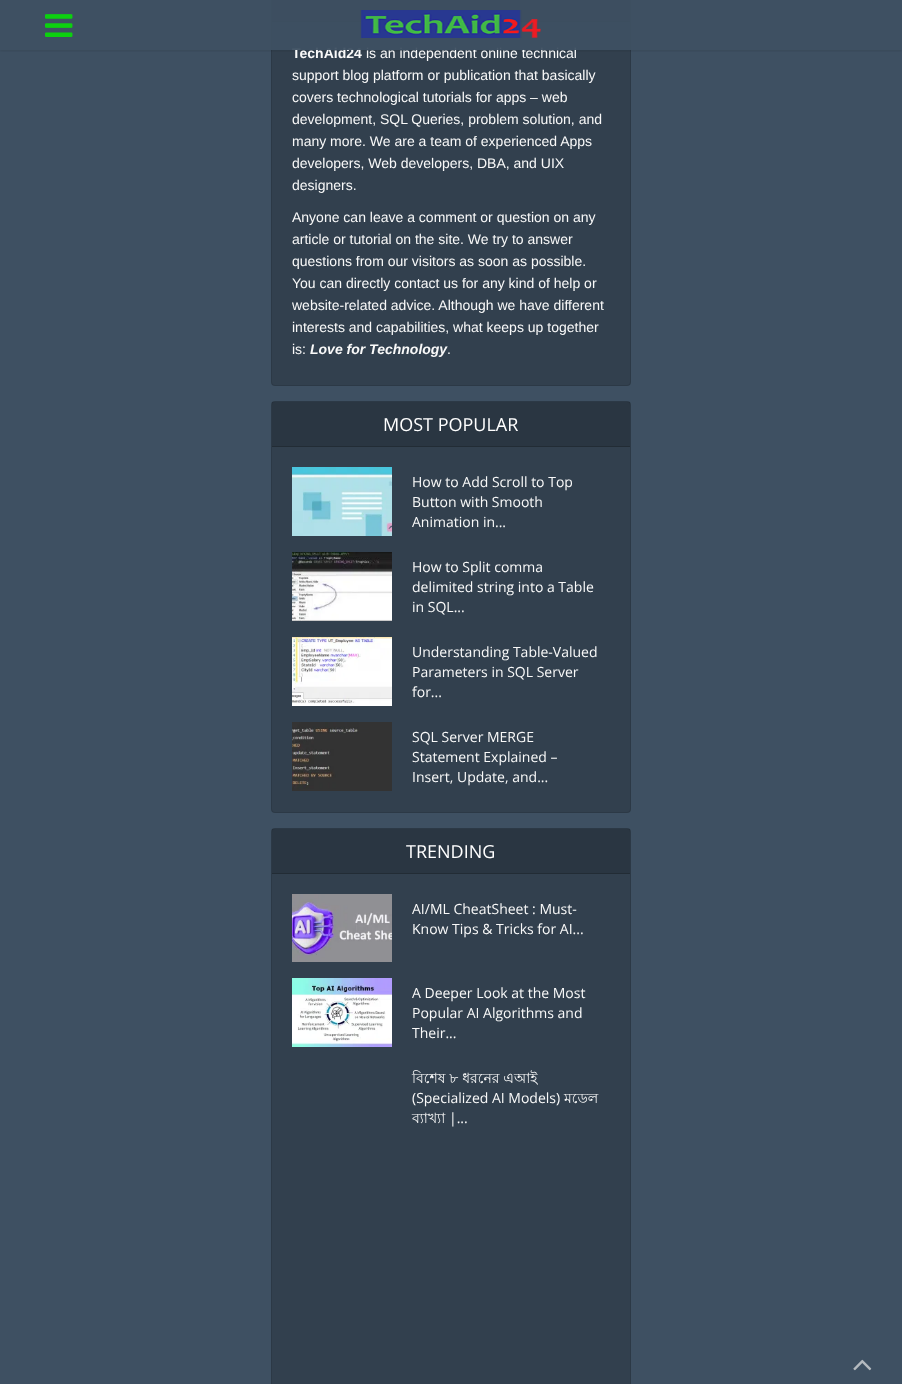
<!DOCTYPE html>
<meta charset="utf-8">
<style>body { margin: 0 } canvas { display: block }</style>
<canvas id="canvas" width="902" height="1384"></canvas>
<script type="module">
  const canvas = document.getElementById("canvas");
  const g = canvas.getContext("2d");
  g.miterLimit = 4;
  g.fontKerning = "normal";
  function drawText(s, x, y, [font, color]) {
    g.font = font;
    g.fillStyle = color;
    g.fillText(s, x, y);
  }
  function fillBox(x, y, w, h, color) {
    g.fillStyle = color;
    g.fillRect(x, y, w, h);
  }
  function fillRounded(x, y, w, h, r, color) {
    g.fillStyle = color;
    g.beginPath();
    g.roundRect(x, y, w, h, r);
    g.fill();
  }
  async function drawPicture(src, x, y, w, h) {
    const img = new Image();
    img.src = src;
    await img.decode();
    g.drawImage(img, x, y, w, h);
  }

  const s1 = ["bold 14px Liberation Sans", "#F9F9F9"];
  const s2 = ["14px Liberation Sans", "#F9F9F9"];
  const s3 = ["italic bold 14px Liberation Sans", "#F9F9F9"];
  const s4 = ["18px Open Sans", "#FFFFFF"];
  const s5 = ["14px Open Sans", "#F9F9F9"];
  const s6 = ["14px Lohit Bengali", "#F9F9F9"];

  fillBox(0, 0, 902, 1384, "#3E5062");
  fillRounded(271, -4, 360, 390, 4, "#32404E");
  g.beginPath();
  g.roundRect(271.5, -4.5, 359, 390, 3.5);
  g.strokeStyle = "rgba(0, 0, 0, 0.1)";
  g.stroke();
  fillBox(272, 0, 358, 21, "#2B3642");
  fillBox(272, 21, 358, 1, "#222B35");
  g.save();
  g.beginPath();
  g.rect(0, 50, 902, 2);
  g.clip();
  g.fillStyle = "rgba(0, 0, 0, 0.1)";
  g.filter = "blur(1.5px)";
  g.beginPath();
  g.rect(0, 1, 902, 50);
  g.fill();
  g.filter = "none";
  g.restore();
  drawText("TechAid24", 292, 58, s1);
  drawText("is an independent online technical", 366, 58, s2);
  fillBox(271, 0, 360, 50, "rgba(62, 80, 98, 0.95)");
  await drawPicture("pic1.png", 45, 14, 28, 23);
  await drawPicture("pic2.png", 360, 10, 181, 28);
  drawText("support blog platform or publication that basically", 292, 80, s2);
  drawText("covers technological tutorials for apps – web", 292, 102, s2);
  drawText("development, SQL Queries, problem solution, and", 292, 124, s2);
  drawText("many more. We are a team of experienced Apps", 292, 146, s2);
  drawText("developers, Web developers, DBA, and UIX", 292, 168, s2);
  drawText("designers.", 292, 190, s2);
  drawText("Anyone can leave a comment or question on any", 292, 222, s2);
  drawText("article or tutorial on the site. We try to answer", 292, 244, s2);
  drawText("questions from our visitors as soon as possible.", 292, 266, s2);
  drawText("You can directly contact us for any kind of help or", 292, 288, s2);
  drawText("website-related advice. Although we have different", 292, 310, s2);
  drawText("interests and capabilities, what keeps up together", 292, 332, s2);
  drawText("is:", 292, 354, s2);
  drawText("Love for Technology", 310, 354, s3);
  drawText(".", 447, 354, s2);
  fillRounded(271, 401, 360, 412, 4, "#32404E");
  g.beginPath();
  g.roundRect(271.5, 401.5, 359, 411, 3.5);
  g.stroke();
  fillBox(272, 402, 358, 44, "rgba(0, 0, 0, 0.15)");
  fillBox(272, 446, 358, 1, "#222C35");
  drawText("MOST POPULAR", 383, 431, s4);
  await drawPicture("pic3.png", 292, 467, 100, 69);
  drawText("How to Add Scroll to Top", 412, 487, s5);
  drawText("Button with Smooth", 412, 507, s5);
  drawText("Animation in...", 412, 527, s5);
  await drawPicture("pic4.png", 292, 552, 100, 69);
  drawText("How to Split comma", 412, 572, s5);
  drawText("delimited string into a Table", 412, 592, s5);
  drawText("in SQL...", 412, 612, s5);
  await drawPicture("pic5.png", 292, 637, 100, 69);
  drawText("Understanding Table-Valued", 412, 657, s5);
  drawText("Parameters in SQL Server", 412, 677, s5);
  drawText("for...", 412, 697, s5);
  await drawPicture("pic6.png", 292, 722, 100, 69);
  drawText("SQL Server MERGE", 412, 742, s5);
  drawText("Statement Explained –", 412, 762, s5);
  drawText("Insert, Update, and...", 412, 782, s5);
  fillRounded(271, 828, 360, 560, 4, "#32404E");
  g.beginPath();
  g.roundRect(271.5, 828.5, 359, 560, 3.5);
  g.stroke();
  fillBox(272, 829, 358, 44, "rgba(0, 0, 0, 0.15)");
  fillBox(272, 873, 358, 1, "#222C35");
  drawText("TRENDING", 406, 858, s4);
  await drawPicture("pic7.png", 292, 894, 100, 68);
  drawText("AI/ML CheatSheet : Must-", 412, 914, s5);
  drawText("Know Tips & Tricks for AI...", 412, 934, s5);
  await drawPicture("pic8.png", 292, 978, 100, 69);
  drawText("A Deeper Look at the Most", 412, 998, s5);
  drawText("Popular AI Algorithms and", 412, 1018, s5);
  drawText("Their...", 412, 1038, s5);
  drawText("বিশেষ ৮ ধরনের এআই", 412, 1083, s6);
  drawText("(Specialized AI Models)", 412, 1103, s5);
  drawText("মডেল", 564, 1103, s6);
  drawText("ব্যাখ্যা", 412, 1123, s6);
  drawText("|...", 449, 1123, s5);
  await drawPicture("pic9.png", 853, 1359, 19, 12);
</script>
